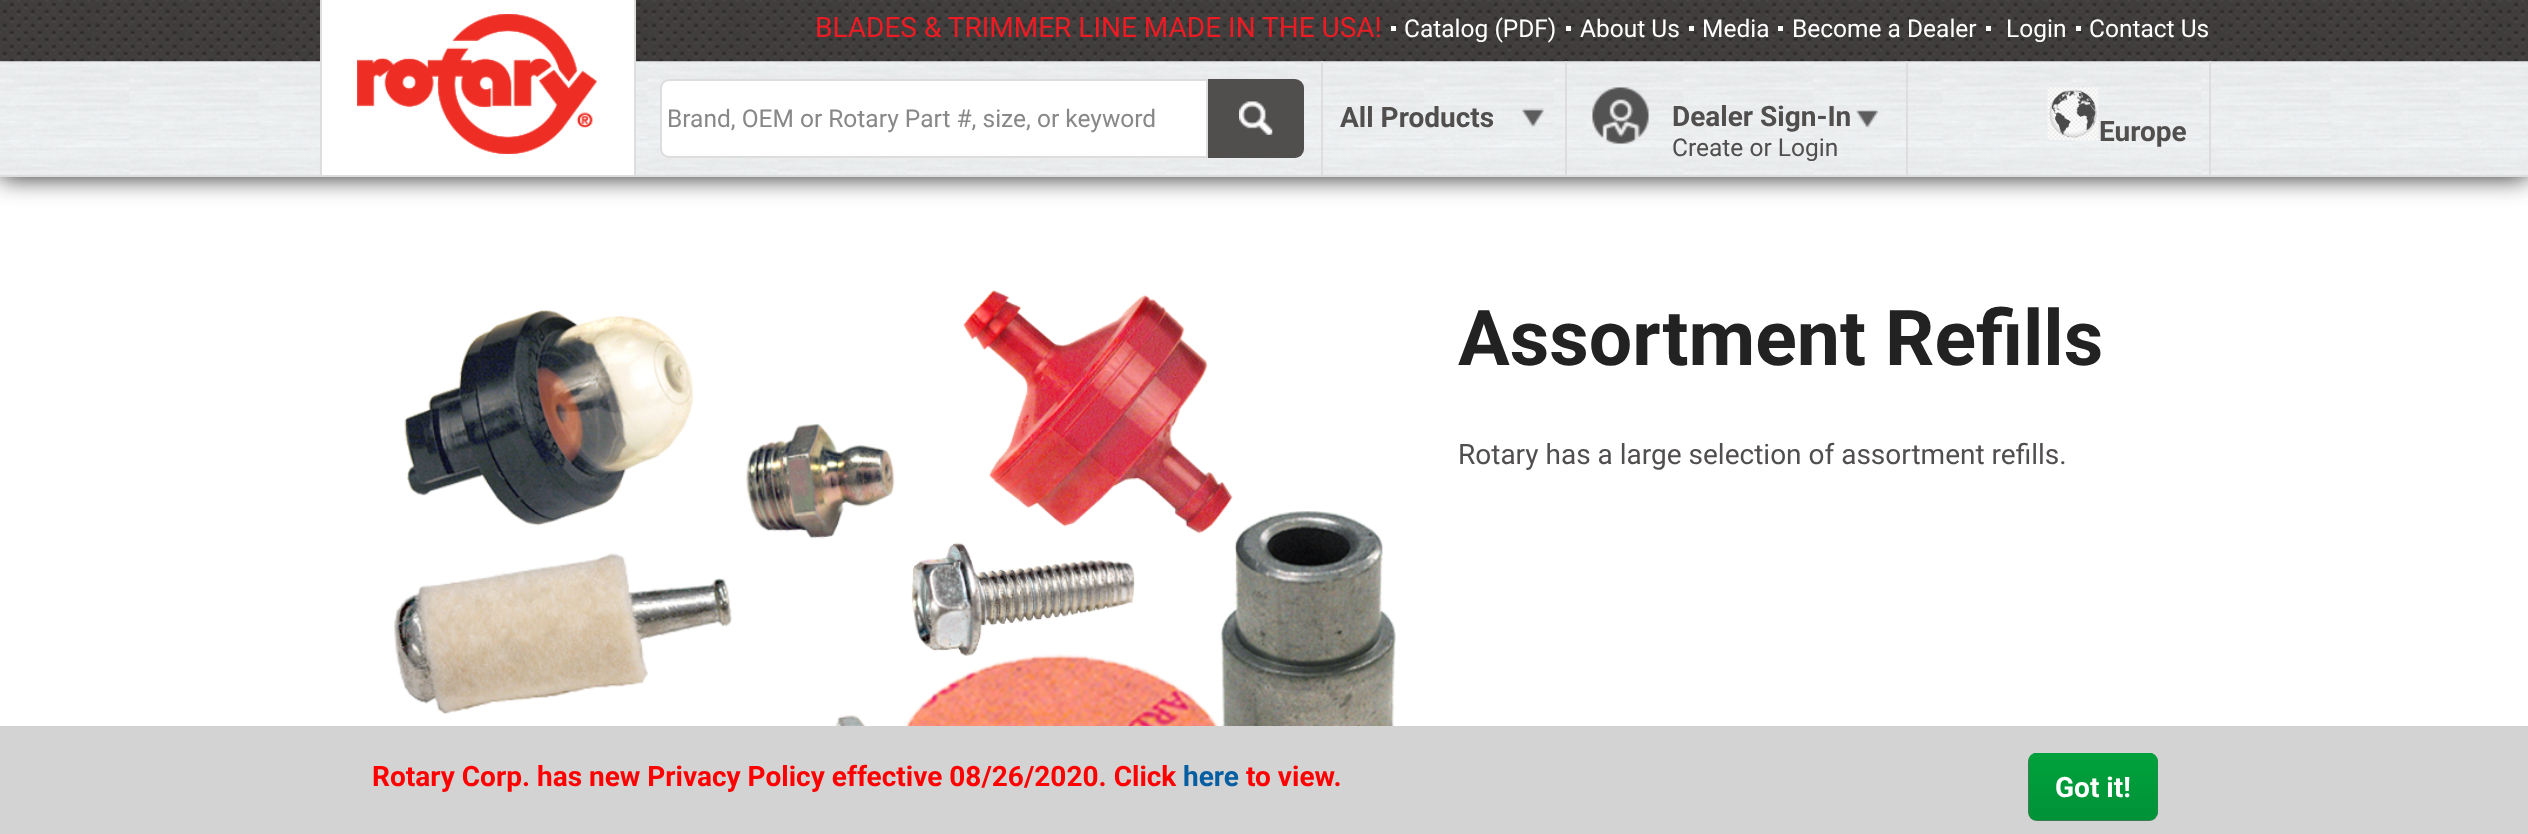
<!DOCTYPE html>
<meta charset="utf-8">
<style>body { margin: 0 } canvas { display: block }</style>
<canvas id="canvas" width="2528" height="834"></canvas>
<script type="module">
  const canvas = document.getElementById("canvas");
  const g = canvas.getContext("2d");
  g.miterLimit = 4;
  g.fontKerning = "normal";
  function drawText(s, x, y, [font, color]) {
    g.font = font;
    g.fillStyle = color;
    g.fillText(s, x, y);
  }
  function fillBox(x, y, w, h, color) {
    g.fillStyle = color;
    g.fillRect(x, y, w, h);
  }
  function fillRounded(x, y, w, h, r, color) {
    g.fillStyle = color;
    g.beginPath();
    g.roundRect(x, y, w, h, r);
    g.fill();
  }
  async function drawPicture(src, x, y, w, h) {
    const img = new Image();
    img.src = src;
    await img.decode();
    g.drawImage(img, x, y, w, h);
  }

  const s1 = ["28px Roboto", "#ED1C24"];
  const s2 = ["24.5px Roboto", "#FFFFFF"];
  const s3 = ["24.5px Roboto", "#888888"];
  const s4 = ["bold 28px Roboto", "#514E4E"];
  const s5 = ["24.5px Roboto", "#514E4E"];
  const s6 = ["bold 77px Roboto", "#222222"];
  const s7 = ["28px Roboto", "#514E4E"];
  const s8 = ["bold 28px Roboto", "#FF0000"];
  const s9 = ["bold 28px Roboto", "#055EA1"];
  const s10 = ["bold 28px Roboto", "#FFFFFF"];

  fillBox(0, 0, 2528, 834, "#FFFFFF");
  g.fillStyle = "#222222";
  g.filter = "blur(13px)";
  g.beginPath();
  g.rect(0, 0, 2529, 177);
  g.fill();
  g.filter = "none";
  await drawPicture("pic1.png", 0, 0, 2528, 62);
  fillBox(0, 175, 2528, 2, "#DDDDDD");
  await drawPicture("pic3.png", 0, 61, 2528, 114);
  fillBox(322, 0, 312, 175, "#FFFFFF");
  fillBox(634, 0, 2, 175, "#DDDDDD");
  fillBox(320, 0, 2, 175, "#DDDDDD");
  await drawPicture("pic2.png", 357, 14, 240, 140);
  drawText("BLADES & TRIMMER LINE MADE IN THE USA!", 815, 37, s1);
  fillBox(1391, 26, 5, 5, "#FFFFFF");
  drawText("Catalog (PDF)", 1404, 37, s2);
  fillBox(1566, 26, 5, 5, "#FFFFFF");
  drawText("About Us", 1580, 37, s2);
  fillBox(1689, 26, 5, 5, "#FFFFFF");
  drawText("Media", 1702, 37, s2);
  fillBox(1778, 26, 5, 5, "#FFFFFF");
  drawText("Become a Dealer", 1792, 37, s2);
  fillBox(1986, 26, 5, 5, "#FFFFFF");
  drawText("Login", 2006, 37, s2);
  fillBox(2076, 26, 5, 5, "#FFFFFF");
  drawText("Contact Us", 2089, 37, s2);
  g.beginPath();
  g.roundRect(661, 80, 546, 77, [8, 0, 0, 8]);
  g.fill();
  g.strokeStyle = "#DDDDDD";
  g.lineWidth = 2;
  g.stroke();
  drawText("Brand, OEM or Rotary Part #, size, or keyword", 667, 127, s3);
  g.fillStyle = "#514E4E";
  g.beginPath();
  g.roundRect(1208, 79, 96, 79, [0, 9, 9, 0]);
  g.fill();
  await drawPicture("pic4.png", 1239, 101, 34, 34);
  await drawPicture("pic5.png", 1522, 108, 22, 19);
  fillBox(1565, 61, 2, 114, "#DDDDDD");
  fillBox(1321, 61, 2, 114, "#DDDDDD");
  drawText("All Products", 1340, 127, s4);
  await drawPicture("pic6.png", 1592, 87, 57, 57);
  fillBox(1906, 61, 2, 114, "#DDDDDD");
  drawText("Dealer Sign-In", 1672, 126, s4);
  await drawPicture("pic7.png", 1856, 110, 22, 18);
  drawText("Create or Login", 1672, 156, s5);
  fillBox(2209, 61, 2, 114, "#DDDDDD");
  await drawPicture("pic8.png", 2047, 87, 52, 53);
  drawText("Europe", 2099, 141, s4);
  await drawPicture("pic9.png", 394, 290, 1002, 436);
  drawText("Assortment Refills", 1458, 365, s6);
  drawText("Rotary has a large selection of assortment refills.", 1458, 464, s7);
  fillBox(0, 726, 2528, 108, "#D3D3D3");
  drawText("Rotary Corp. has new Privacy Policy effective 08/26/2020. Click", 372, 786, s8);
  drawText("here", 1183, 786, s9);
  drawText("to view.", 1246, 786, s8);
  fillRounded(2028, 753, 130, 68, 9, "#6B6767");
  await drawPicture("pic10.png", 2028, 753, 130, 68);
  drawText("Got it!", 2055, 797, s10);
</script>
